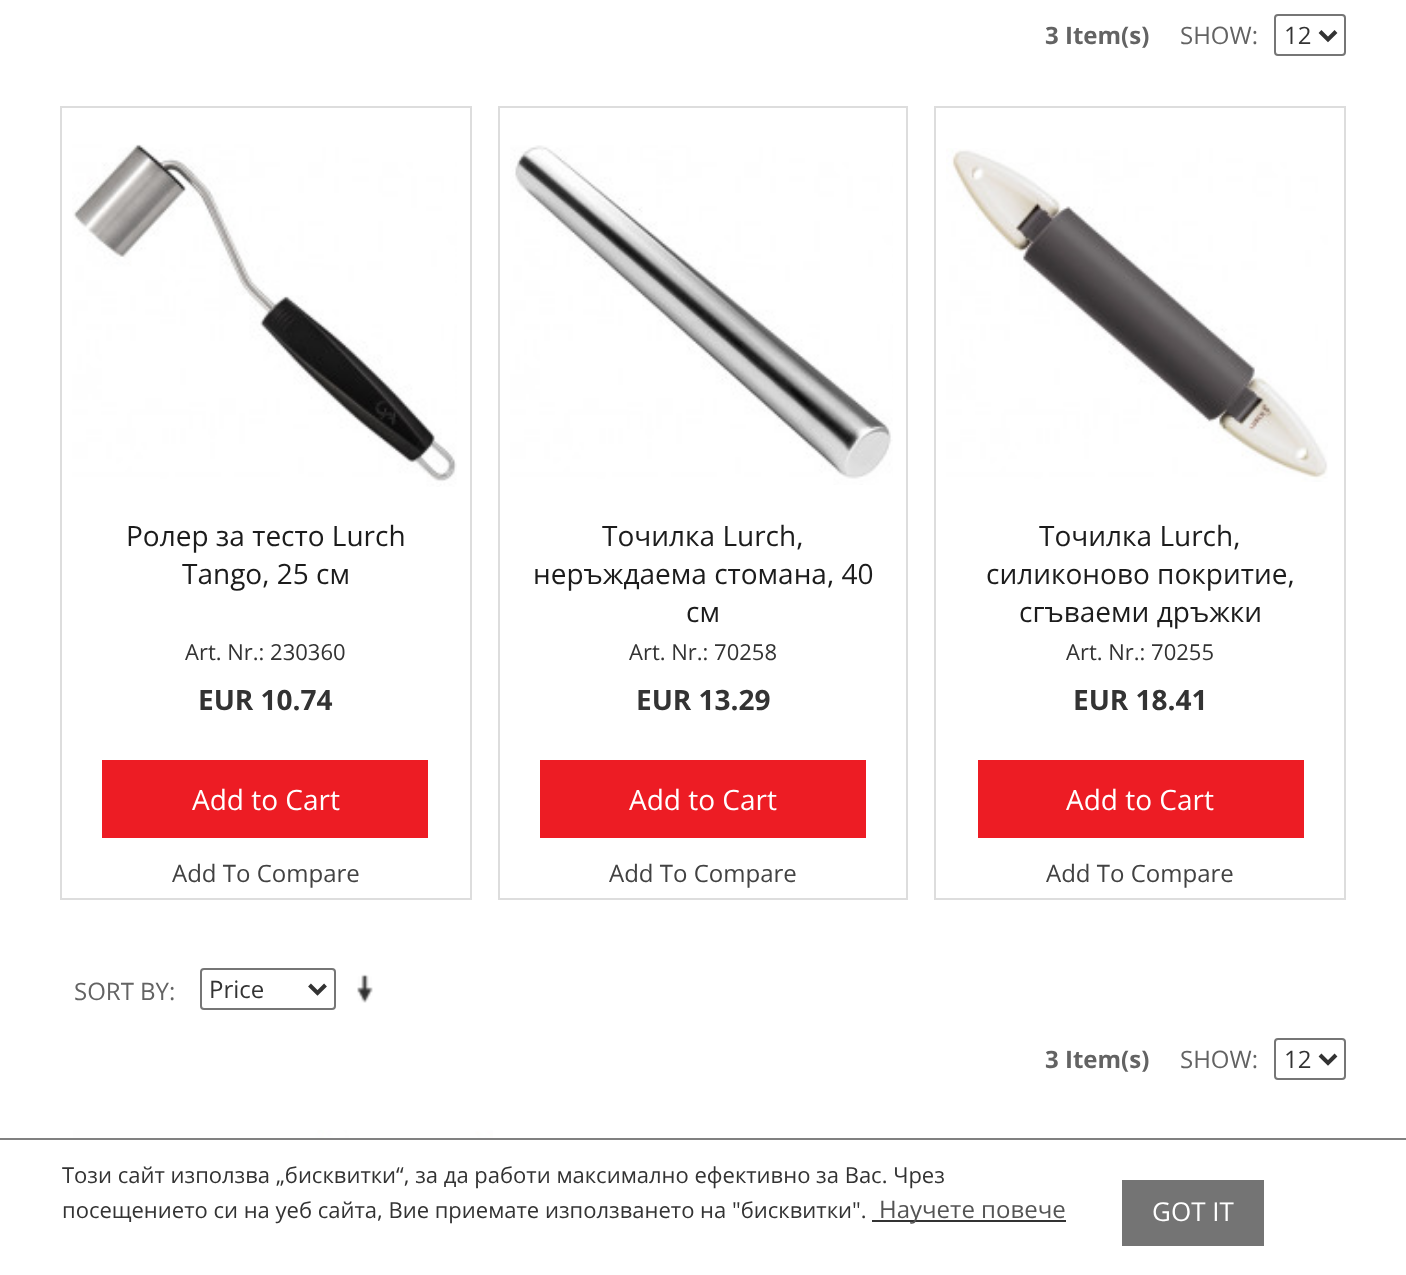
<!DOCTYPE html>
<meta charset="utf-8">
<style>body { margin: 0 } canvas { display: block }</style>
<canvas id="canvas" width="1406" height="1275"></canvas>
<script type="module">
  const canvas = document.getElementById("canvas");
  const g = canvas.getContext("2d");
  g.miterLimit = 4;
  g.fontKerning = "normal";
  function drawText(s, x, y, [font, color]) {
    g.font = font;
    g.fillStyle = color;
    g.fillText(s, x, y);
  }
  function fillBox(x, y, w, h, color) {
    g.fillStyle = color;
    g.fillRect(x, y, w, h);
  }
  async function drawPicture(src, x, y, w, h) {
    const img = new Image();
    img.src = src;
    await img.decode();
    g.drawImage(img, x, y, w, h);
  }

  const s1 = ["bold 24px Open Sans", "#636363"];
  const s2 = ["24px Open Sans", "#636363"];
  const s3 = ["24px Open Sans", "#333333"];
  const s4 = ["28px Open Sans", "#1C1C1C"];
  const s5 = ["22px Open Sans", "#333333"];
  const s6 = ["bold 28px Open Sans", "#333333"];
  const s7 = ["28px Open Sans", "#FFFFFF"];
  const s8 = ["24px Open Sans", "#424242"];
  const s9 = ["24px Open Sans", "#545454"];
  const s10 = ["26px Open Sans", "#FFFFFF"];

  fillBox(0, 0, 1406, 1275, "#FFFFFF");
  drawText("3 Item(s)", 1045, 44, s1);
  drawText("SHOW:", 1180, 44, s2);
  g.beginPath();
  g.roundRect(1275, 15, 70, 40, 3);
  g.strokeStyle = "#767676";
  g.lineWidth = 2;
  g.stroke();
  g.beginPath();
  g.moveTo(1320, 31.5);
  g.lineTo(1328, 39.5);
  g.lineTo(1336, 31.5);
  g.strokeStyle = "#333333";
  g.lineWidth = 4;
  g.stroke();
  drawText("12", 1284, 44, s3);
  g.strokeStyle = "#DDDDDD";
  g.lineWidth = 2;
  g.strokeRect(61, 107, 410, 792);
  await drawPicture("pic1.png", 72, 144, 385, 343);
  drawText("Ролер за тесто Lurch", 126, 546, s4);
  drawText("Tango, 25 см", 182, 584, s4);
  drawText("Art. Nr.: 230360", 185, 660, s5);
  drawText("EUR 10.74", 198, 710, s6);
  fillBox(102, 760, 326, 78, "#ED1C24");
  drawText("Add to Cart", 192, 810, s7);
  drawText("Add To Compare", 172, 882, s8);
  g.strokeRect(499, 107, 408, 792);
  await drawPicture("pic2.png", 510, 145, 383, 340);
  drawText("Точилка Lurch,", 602, 546, s4);
  drawText("неръждаема стомана, 40", 533, 584, s4);
  drawText("см", 686, 622, s4);
  drawText("Art. Nr.: 70258", 629, 660, s5);
  drawText("EUR 13.29", 636, 710, s6);
  fillBox(540, 760, 326, 78, "#ED1C24");
  drawText("Add to Cart", 629, 810, s7);
  drawText("Add To Compare", 609, 882, s8);
  g.strokeRect(935, 107, 410, 792);
  await drawPicture("pic3.png", 946, 148, 382, 334);
  drawText("Точилка Lurch,", 1039, 546, s4);
  drawText("силиконово покритие,", 986, 584, s4);
  drawText("сгъваеми дръжки", 1019, 622, s4);
  drawText("Art. Nr.: 70255", 1066, 660, s5);
  drawText("EUR 18.41", 1073, 710, s6);
  fillBox(978, 760, 326, 78, "#ED1C24");
  drawText("Add to Cart", 1066, 810, s7);
  drawText("Add To Compare", 1046, 882, s8);
  drawText("SORT BY:", 74, 1000, s2);
  g.beginPath();
  g.roundRect(201, 969, 134, 40, 3);
  g.strokeStyle = "#767676";
  g.stroke();
  g.beginPath();
  g.moveTo(309.5, 985);
  g.lineTo(317.5, 993);
  g.lineTo(325.5, 985);
  g.strokeStyle = "#333333";
  g.lineWidth = 4;
  g.stroke();
  drawText("Price", 209, 998, s3);
  await drawPicture("pic4.png", 357, 974, 16, 29);
  drawText("3 Item(s)", 1045, 1068, s1);
  drawText("SHOW:", 1180, 1068, s2);
  g.beginPath();
  g.roundRect(1275, 1039, 70, 40, 3);
  g.strokeStyle = "#767676";
  g.lineWidth = 2;
  g.stroke();
  g.beginPath();
  g.moveTo(1320, 1055);
  g.lineTo(1328, 1063);
  g.lineTo(1336, 1055);
  g.strokeStyle = "#333333";
  g.lineWidth = 4;
  g.stroke();
  drawText("12", 1284, 1068, s3);
  await drawPicture("pic5.png", 73, 1130, 420, 8);
  fillBox(0, 1138, 1406, 2, "#808080");
  drawText("Този сайт използва „бисквитки“, за да работи максимално ефективно за Вас. Чрез", 62, 1183, s5);
  drawText("посещението си на уеб сайта, Вие приемате използването на \"бисквитки\".", 62, 1218, s5);
  fillBox(872, 1220, 194, 2, "#333333");
  drawText("Научете повече", 879, 1218, s9);
  fillBox(1122, 1180, 142, 66, "#747474");
  drawText("GOT IT", 1152, 1221, s10);
</script>
